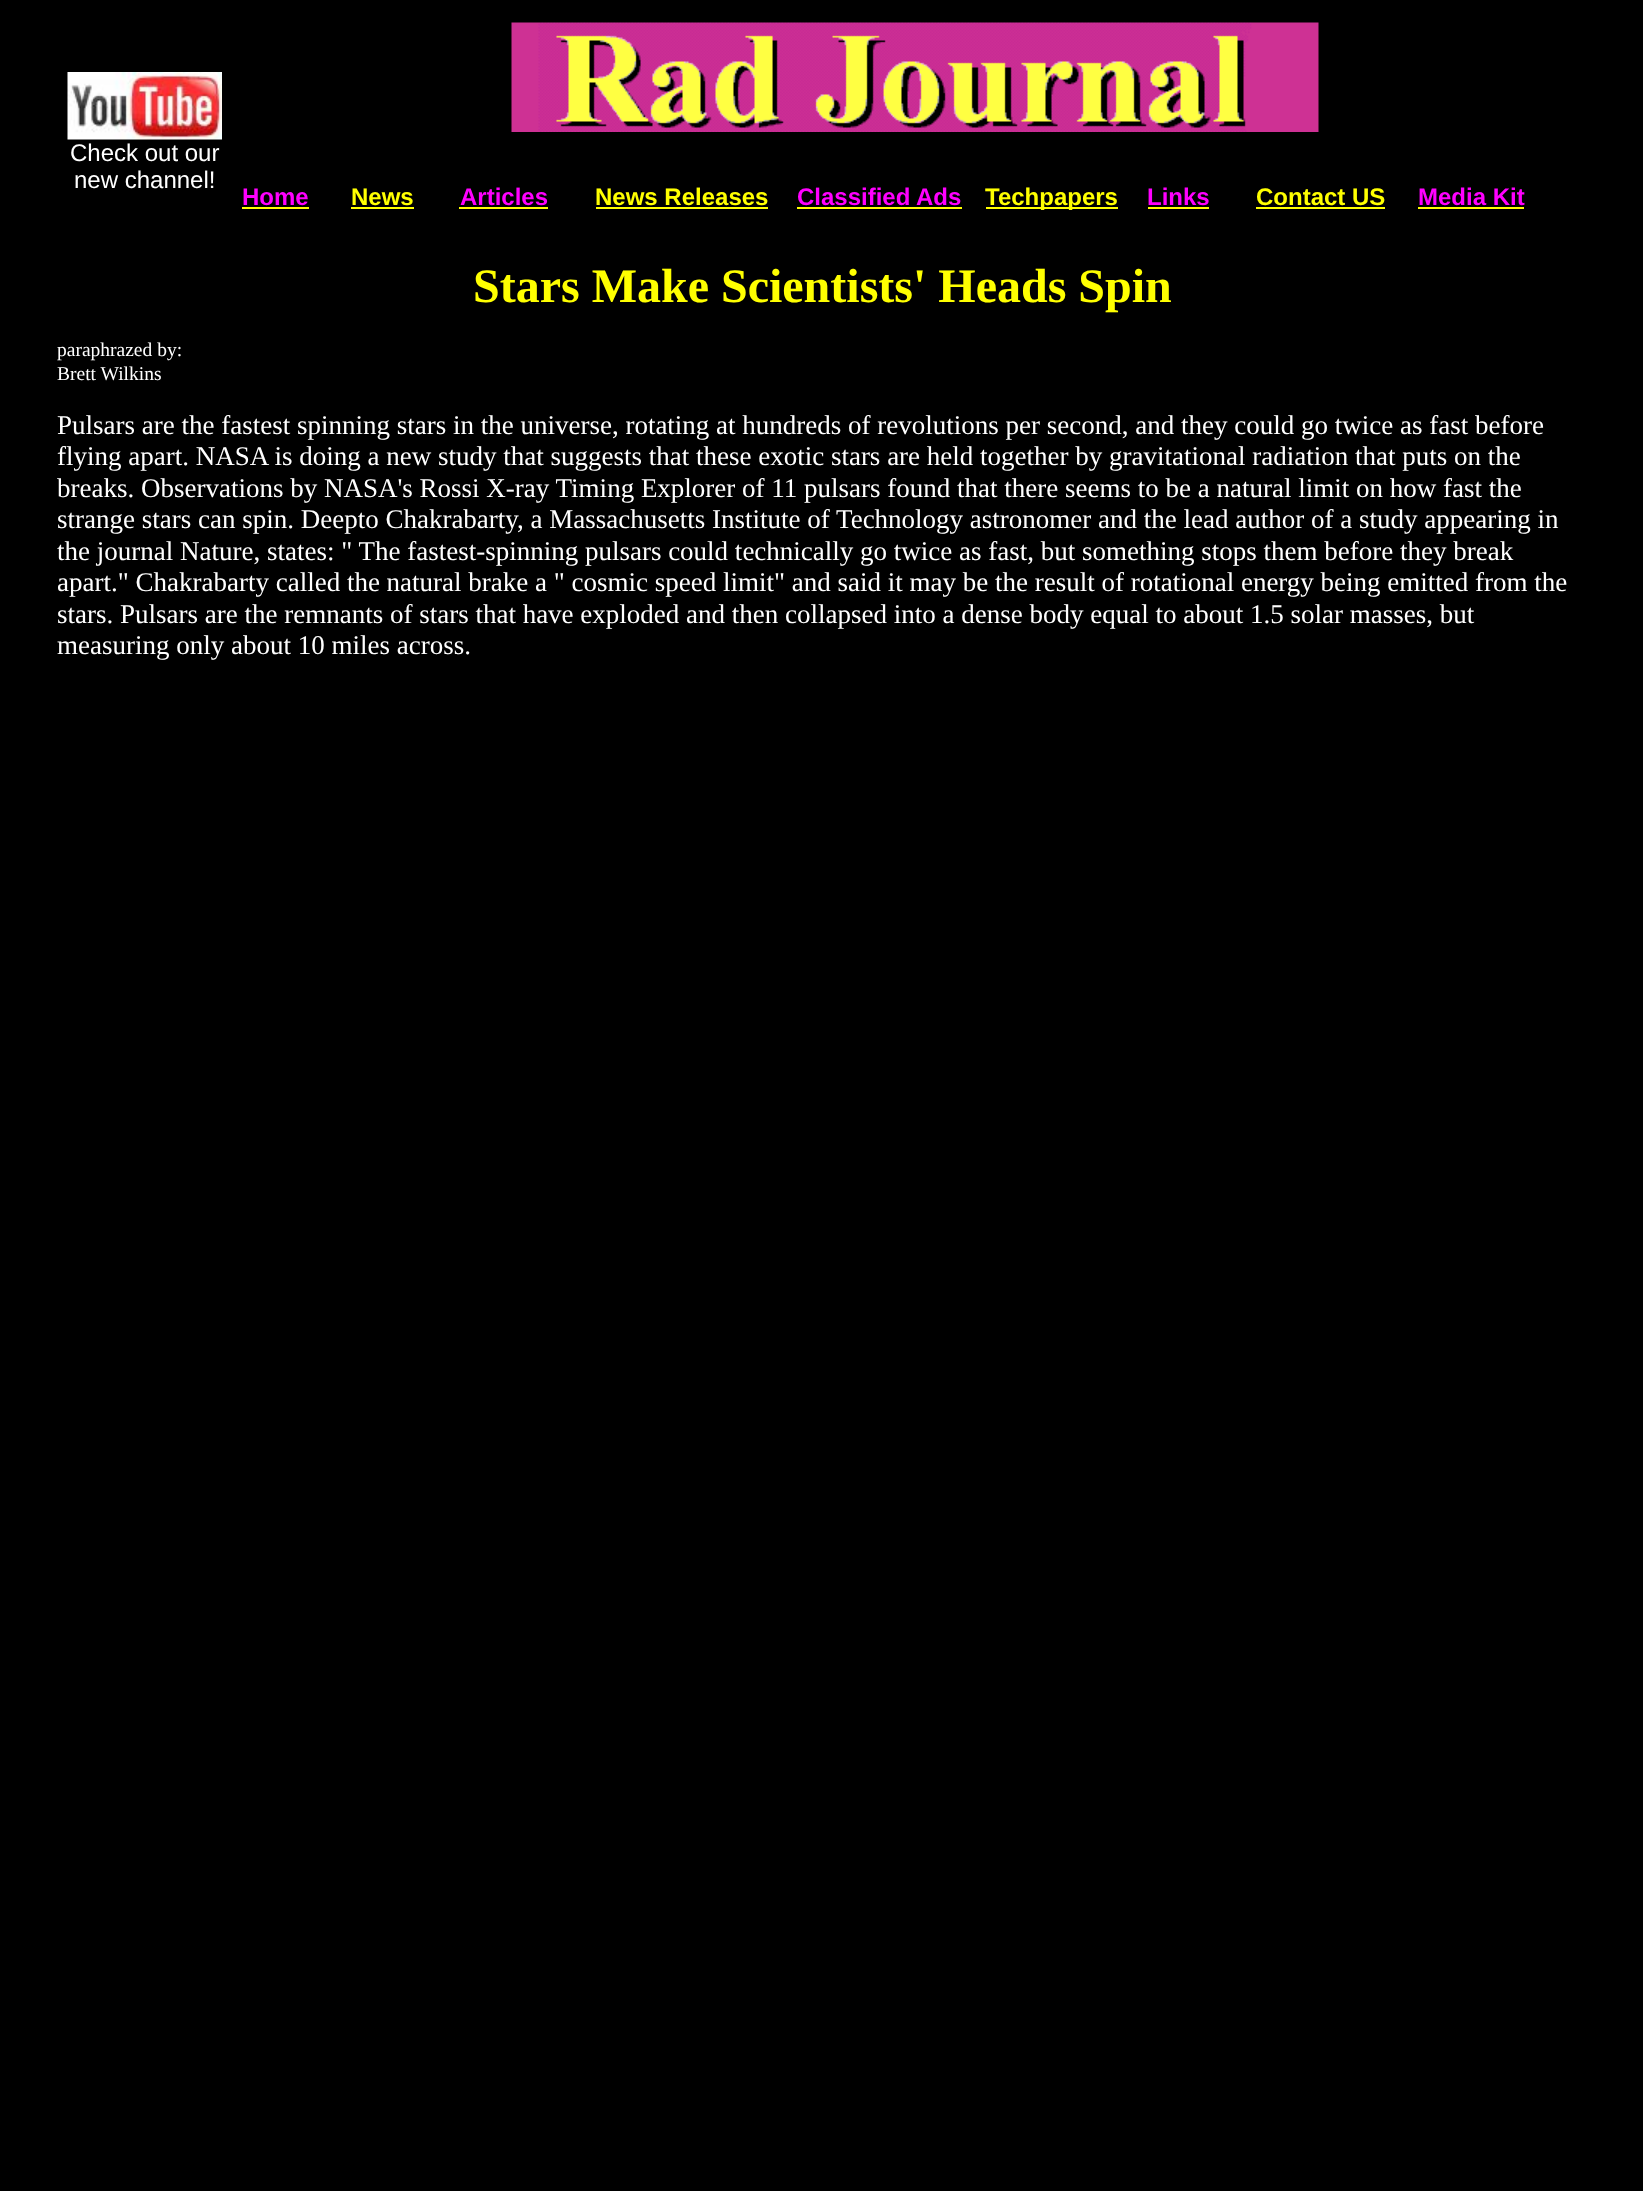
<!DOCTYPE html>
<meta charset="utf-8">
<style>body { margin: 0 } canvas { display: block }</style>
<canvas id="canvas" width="1643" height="2191"></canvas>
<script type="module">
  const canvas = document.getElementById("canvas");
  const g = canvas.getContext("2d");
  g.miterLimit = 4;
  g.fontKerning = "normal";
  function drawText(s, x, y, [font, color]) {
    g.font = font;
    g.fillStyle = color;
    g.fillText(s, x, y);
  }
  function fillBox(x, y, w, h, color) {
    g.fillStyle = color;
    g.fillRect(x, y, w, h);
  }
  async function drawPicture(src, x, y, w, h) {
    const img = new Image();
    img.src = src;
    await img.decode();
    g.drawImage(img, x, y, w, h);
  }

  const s1 = ["24px Liberation Sans", "#FFFFFF"];
  const s2 = ["bold 24px Liberation Sans", "#FF00FF"];
  const s3 = ["bold 24px Liberation Sans", "#FFFF00"];
  const s4 = ["bold 48px Liberation Serif", "#FFFF00"];
  const s5 = ["19.5px Liberation Serif", "#FFFFFF"];
  const s6 = ["27px Liberation Serif", "#FFFFFF"];

  fillBox(0, 0, 1643, 2191, "#000000");
  await drawPicture("pic1.png", 511, 22, 808, 110);
  await drawPicture("pic2.png", 67, 72, 155, 68);
  drawText("Check out our", 70, 161, s1);
  drawText("new channel!", 74, 188, s1);
  drawText("Home", 242, 205, s2);
  fillBox(242, 207, 67, 2, "#FFFF00");
  drawText("News", 351, 205, s3);
  fillBox(351, 207, 63, 2, "#FFFF00");
  drawText("Articles", 460, 205, s2);
  fillBox(459, 207, 89, 2, "#FFFF00");
  drawText("News Releases", 595, 205, s3);
  fillBox(596, 207, 172, 2, "#FFFF00");
  drawText("Classified", 797, 205, s2);
  fillBox(797, 207, 165, 2, "#FFFF00");
  drawText("Ads", 916, 205, s2);
  fillBox(986, 207, 132, 2, "#FFFF00");
  drawText("Techpapers", 985, 205, s3);
  drawText("Links", 1147, 205, s2);
  fillBox(1148, 207, 61, 2, "#FFFF00");
  drawText("Contact US", 1256, 205, s3);
  fillBox(1256, 207, 129, 2, "#FFFF00");
  drawText("Media Kit", 1418, 205, s2);
  fillBox(1418, 207, 106, 2, "#FFFF00");
  drawText("Stars Make Scientists' Heads Spin", 473, 302, s4);
  drawText("paraphrazed by:", 57, 356, s5);
  drawText("Brett Wilkins", 57, 380, s5);
  drawText("Pulsars are the fastest spinning stars in the universe, rotating at hundreds of revolutions per second, and they could go twice as fast before", 57, 434, s6);
  drawText("flying apart. NASA is doing a new study that suggests that these exotic stars are held together by gravitational radiation that puts on the", 57, 465, s6);
  drawText("breaks. Observations by NASA's Rossi X-ray Timing Explorer of 11 pulsars found that there seems to be a natural limit on how fast the", 57, 497, s6);
  drawText("strange stars can spin. Deepto Chakrabarty, a Massachusetts Institute of Technology astronomer and the lead author of a study appearing in", 57, 528, s6);
  drawText("the journal Nature, states: \" The fastest-spinning pulsars could technically go twice as fast, but something stops them before they break", 57, 560, s6);
  drawText("apart.\" Chakrabarty called the natural brake a \" cosmic speed limit\" and said it may be the result of rotational energy being emitted from the", 57, 591, s6);
  drawText("stars. Pulsars are the remnants of stars that have exploded and then collapsed into a dense body equal to about 1.5 solar masses, but", 57, 623, s6);
  drawText("measuring only about 10 miles across.", 57, 654, s6);
</script>
